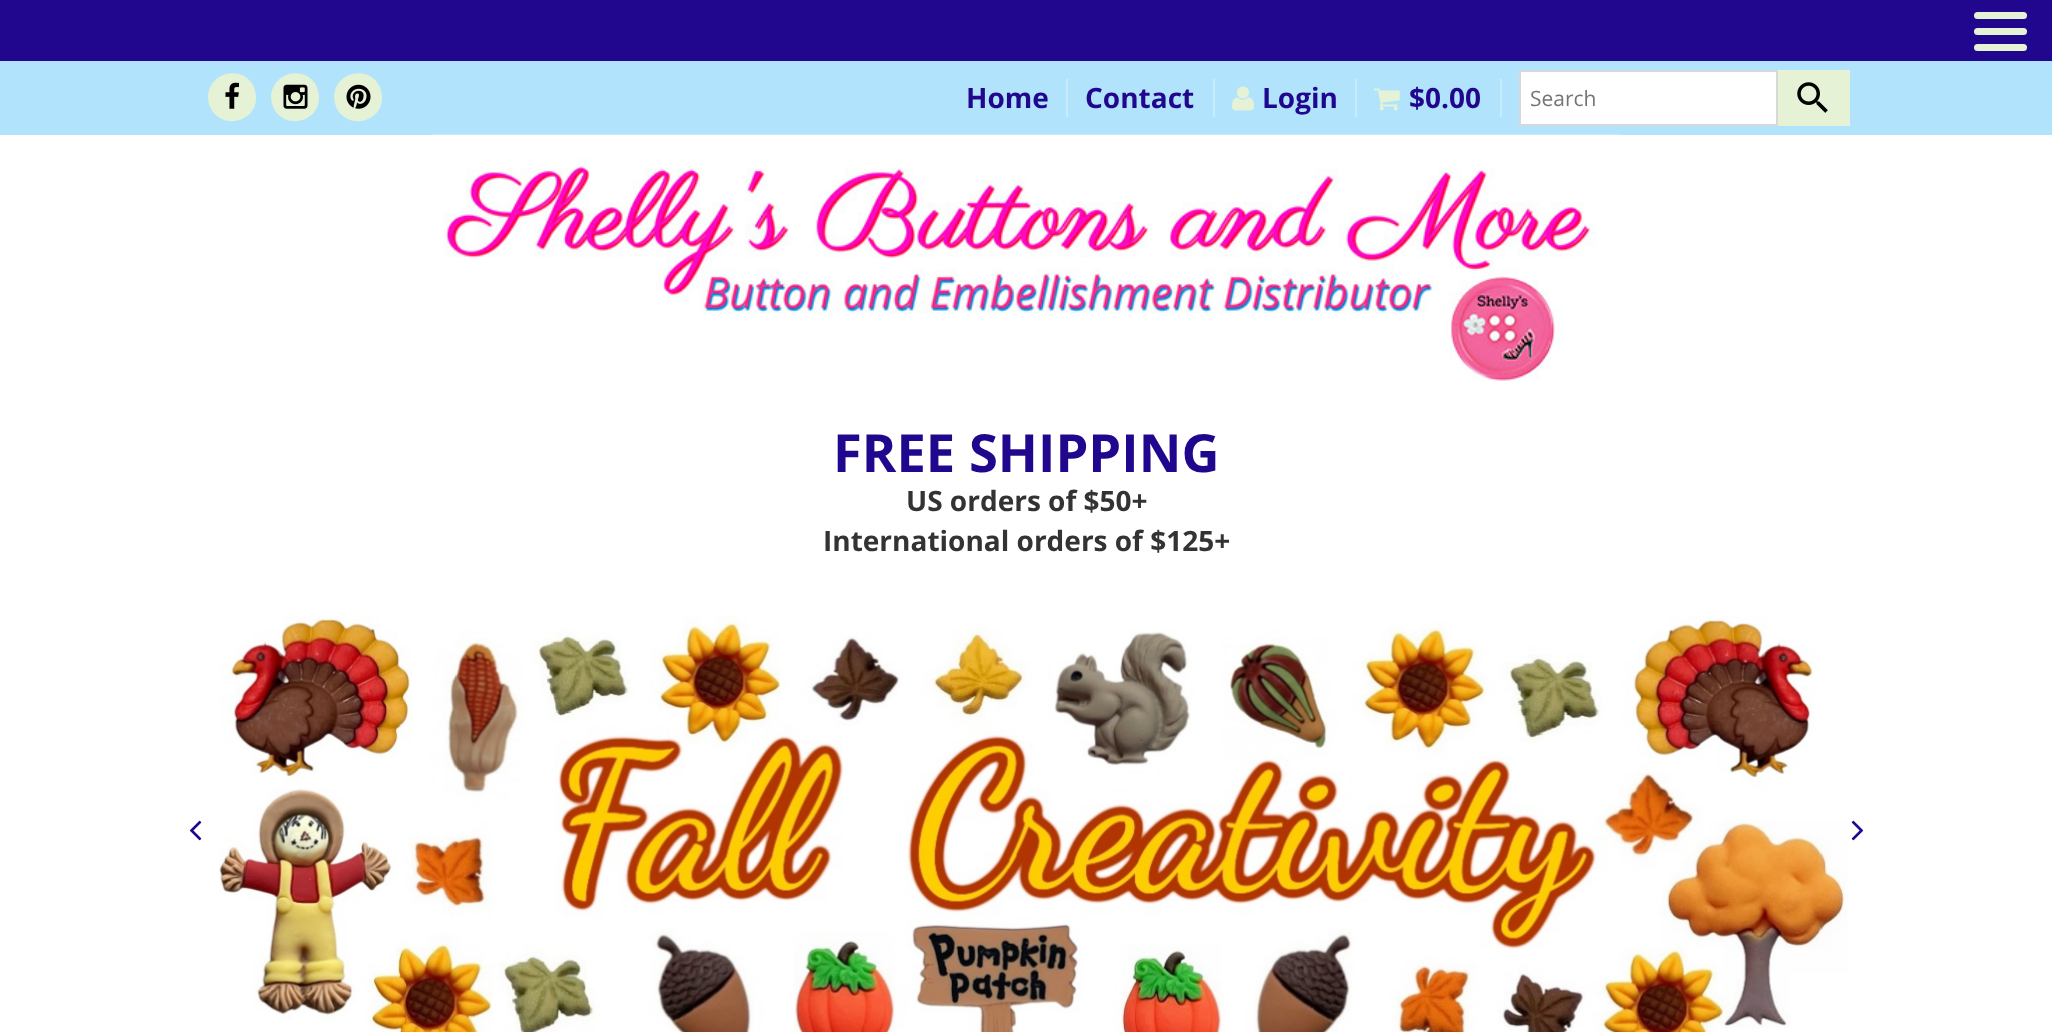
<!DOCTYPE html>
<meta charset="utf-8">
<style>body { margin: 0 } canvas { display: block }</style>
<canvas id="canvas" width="2052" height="1032"></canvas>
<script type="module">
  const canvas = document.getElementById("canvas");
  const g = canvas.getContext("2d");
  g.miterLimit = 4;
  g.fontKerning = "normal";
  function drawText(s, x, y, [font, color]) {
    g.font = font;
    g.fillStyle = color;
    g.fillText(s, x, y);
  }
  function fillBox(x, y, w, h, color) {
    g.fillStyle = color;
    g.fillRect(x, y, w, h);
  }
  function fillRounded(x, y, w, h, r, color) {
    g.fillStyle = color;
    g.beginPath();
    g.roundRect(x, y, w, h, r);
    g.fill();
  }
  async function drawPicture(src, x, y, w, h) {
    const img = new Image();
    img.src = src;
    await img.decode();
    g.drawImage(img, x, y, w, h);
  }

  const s1 = ["bold 28px Open Sans", "#21078E"];
  const s2 = ["21px Open Sans", "#757575"];
  const s3 = ["bold 52.5px Open Sans", "#21078E"];
  const s4 = ["bold 28px Open Sans", "#333333"];

  fillBox(0, 0, 2052, 1032, "#FFFFFF");
  fillBox(0, 0, 2052, 61, "#21078E");
  fillRounded(1974, 28, 53, 7, 3.5, "#E5F2D6");
  fillRounded(1974, 12, 53, 7, 3.5, "#E5F2D6");
  fillRounded(1974, 44, 53, 7, 3.5, "#E5F2D6");
  fillBox(0, 61, 2052, 74, "#B1E4FC");
  g.fillStyle = "#E5F2D6";
  g.beginPath();
  g.moveTo(253, 85);
  g.bezierCurveTo(255, 89, 256, 94, 256, 99);
  g.bezierCurveTo(255, 122, 223, 130, 211, 109);
  g.bezierCurveTo(209, 105, 208, 100, 208, 96);
  g.bezierCurveTo(210, 72, 241, 65, 253, 85);
  g.closePath();
  g.fill();
  await drawPicture("pic1.png", 225, 82, 14, 27);
  g.beginPath();
  g.moveTo(316, 85);
  g.bezierCurveTo(318, 89, 319, 94, 319, 99);
  g.bezierCurveTo(318, 122, 286, 130, 274, 109);
  g.bezierCurveTo(272, 105, 271, 100, 271, 96);
  g.bezierCurveTo(273, 72, 304, 65, 316, 85);
  g.closePath();
  g.fill();
  await drawPicture("pic2.png", 283, 84, 25, 25);
  g.beginPath();
  g.moveTo(379, 85);
  g.bezierCurveTo(381, 89, 382, 94, 382, 99);
  g.bezierCurveTo(381, 122, 349, 130, 337, 109);
  g.bezierCurveTo(335, 105, 334, 100, 334, 96);
  g.bezierCurveTo(336, 72, 367, 65, 379, 85);
  g.closePath();
  g.fill();
  await drawPicture("pic3.png", 346, 84, 25, 25);
  fillBox(1066, 79, 2, 38, "#C8ECFD");
  drawText("Home", 966, 108, s1);
  fillBox(1213, 79, 2, 38, "#C8ECFD");
  drawText("Contact", 1085, 108, s1);
  fillBox(1355, 79, 2, 38, "#C8ECFD");
  await drawPicture("pic4.png", 1232, 86, 22, 25);
  drawText("Login", 1262, 108, s1);
  fillBox(1500, 79, 2, 38, "#C8ECFD");
  await drawPicture("pic5.png", 1373, 88, 27, 23);
  drawText("$0.00", 1409, 108, s1);
  g.fillStyle = "#FFFFFF";
  g.beginPath();
  g.rect(1520, 71, 257, 54);
  g.fill();
  g.strokeStyle = "#D8D8D8";
  g.lineWidth = 2;
  g.stroke();
  drawText("Search", 1530, 106, s2);
  fillBox(1778, 70, 72, 56, "#E5F2D6");
  await drawPicture("pic6.png", 1797, 82, 31, 31);
  await drawPicture("pic7.png", 432, 134, 1189, 247);
  drawText("FREE SHIPPING", 833, 472, s3);
  drawText("US orders of $50+", 906, 511, s4);
  drawText("International orders of $125+", 823, 551, s4);
  await drawPicture("pic8.png", 189, 820, 13, 21);
  await drawPicture("pic9.png", 219, 615, 1629, 417);
  await drawPicture("pic10.png", 1851, 820, 13, 21);
</script>
